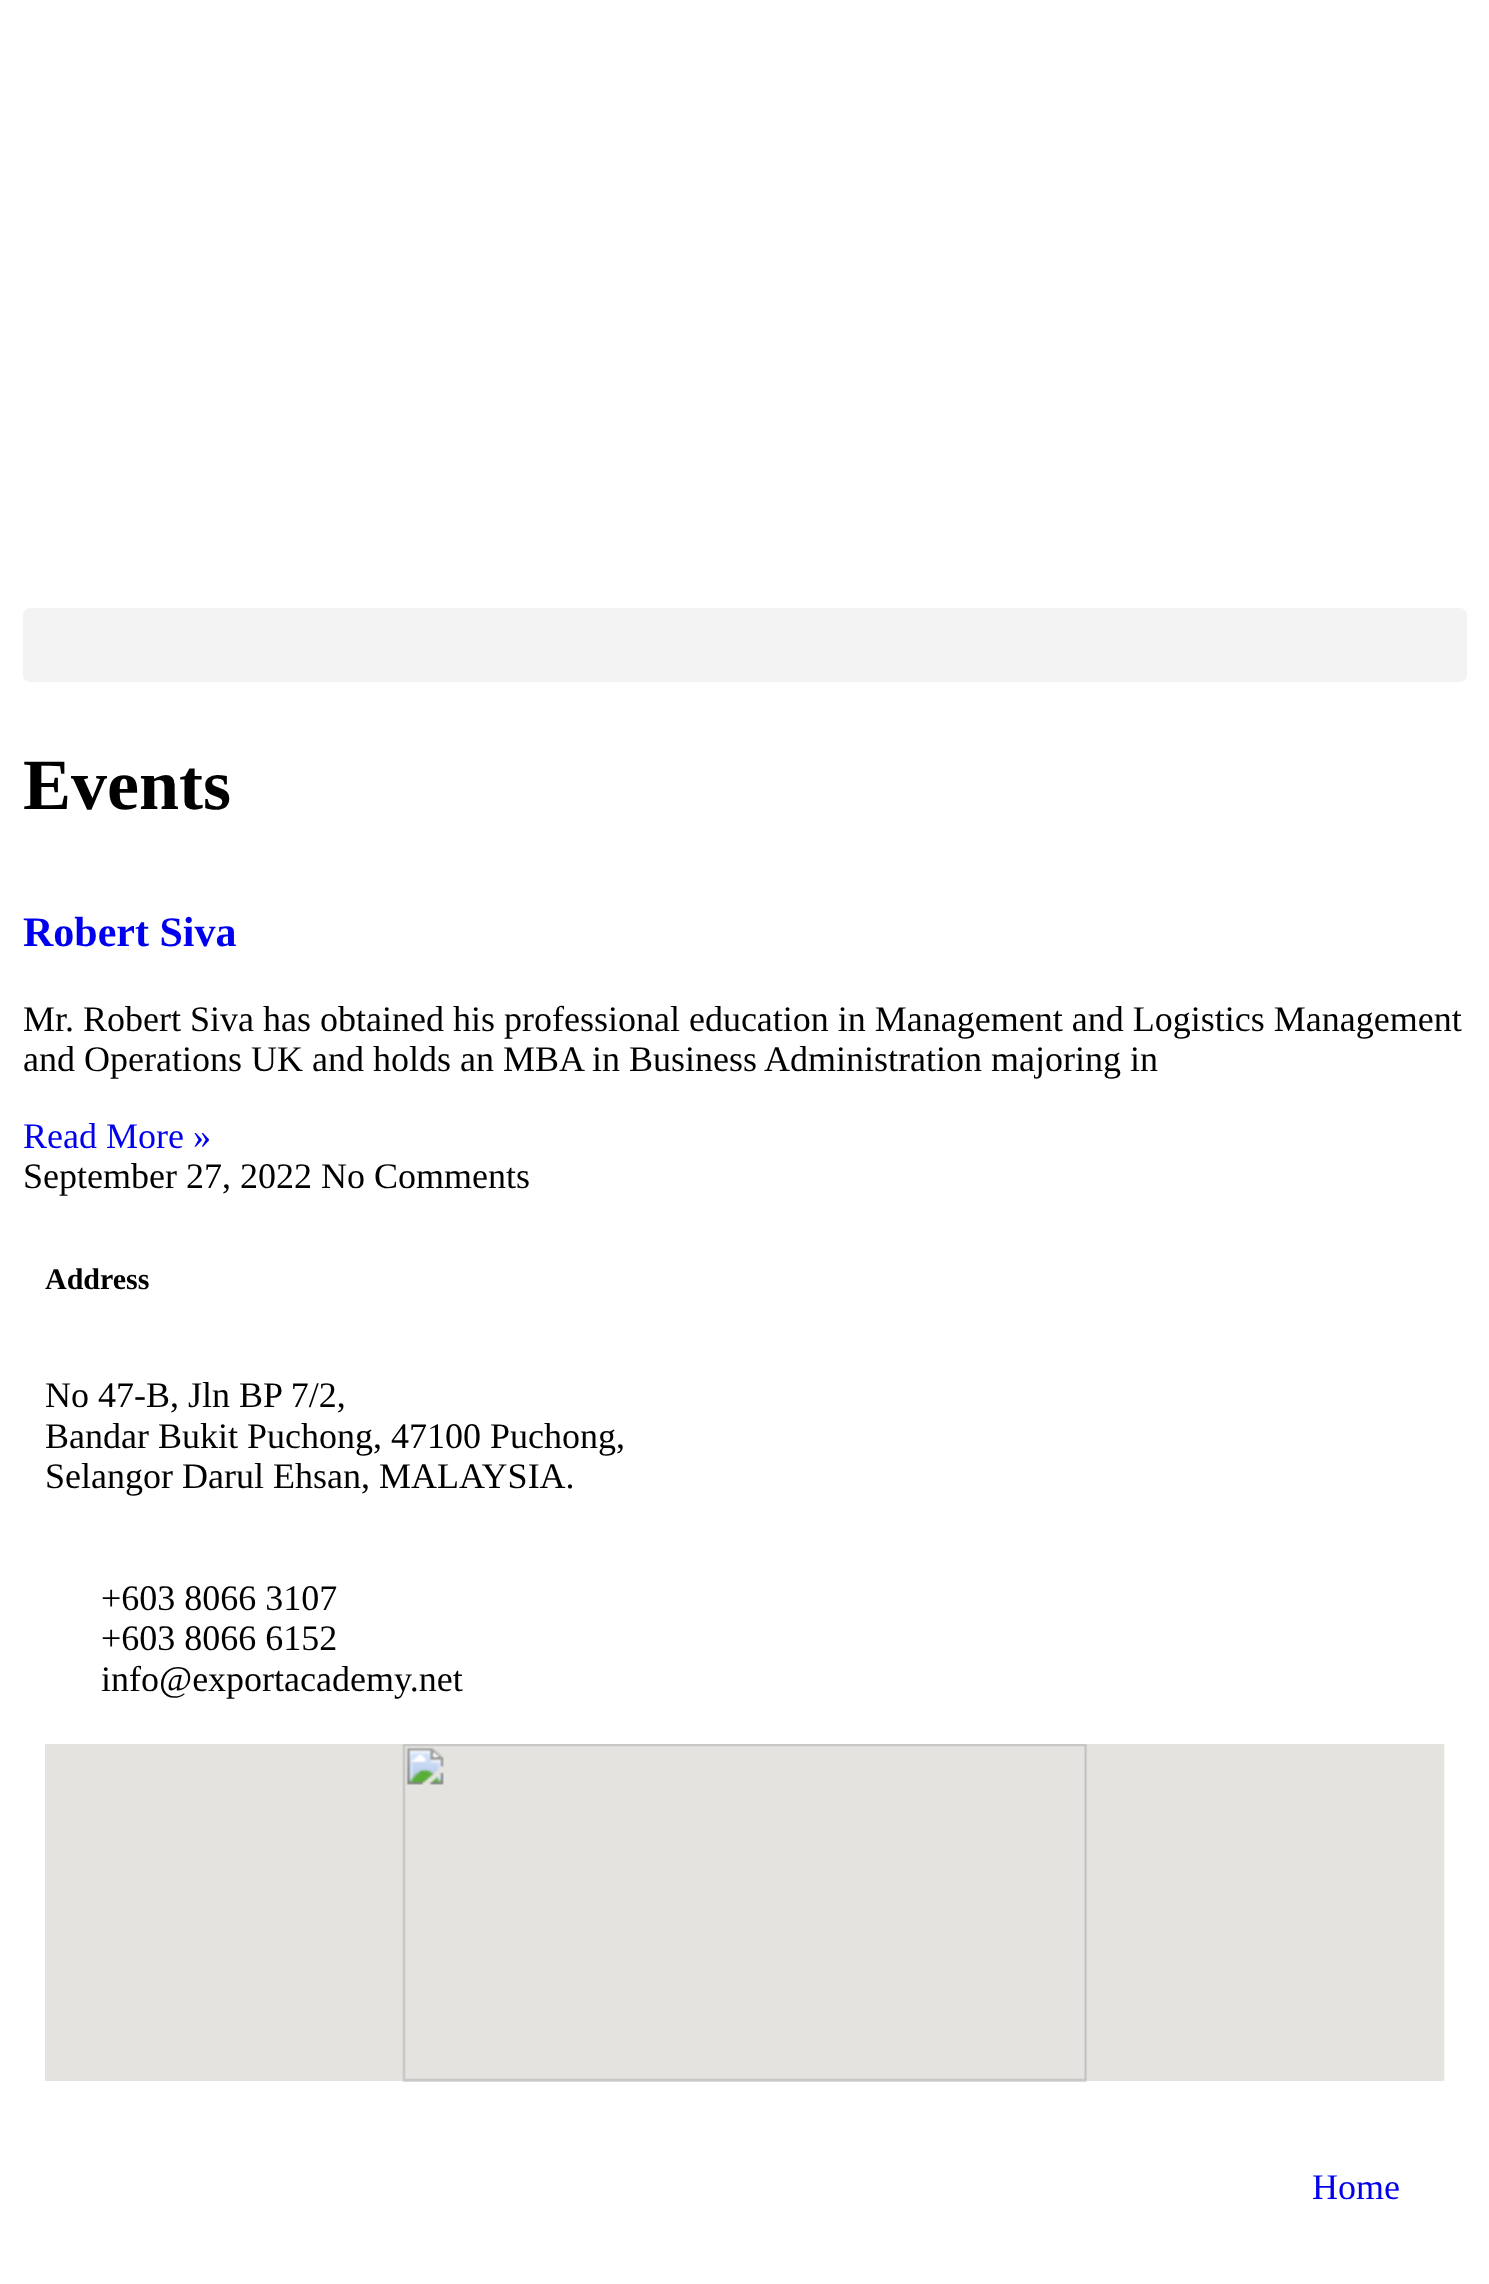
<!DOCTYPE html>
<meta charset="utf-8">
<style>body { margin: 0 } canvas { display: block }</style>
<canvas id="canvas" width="1489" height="2284"></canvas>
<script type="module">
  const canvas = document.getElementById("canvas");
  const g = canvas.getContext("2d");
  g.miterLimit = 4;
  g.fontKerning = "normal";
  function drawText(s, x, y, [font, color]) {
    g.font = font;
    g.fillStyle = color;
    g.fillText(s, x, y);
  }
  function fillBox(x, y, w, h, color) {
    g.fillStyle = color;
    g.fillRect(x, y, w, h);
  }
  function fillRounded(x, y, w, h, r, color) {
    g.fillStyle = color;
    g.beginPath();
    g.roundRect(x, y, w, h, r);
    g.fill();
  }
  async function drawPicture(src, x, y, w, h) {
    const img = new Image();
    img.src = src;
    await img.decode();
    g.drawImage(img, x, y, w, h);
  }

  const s1 = ["bold 72px Liberation Serif", "#000000"];
  const s2 = ["bold 42px Liberation Serif", "#0000EE"];
  const s3 = ["36px Liberation Serif", "#000000"];
  const s4 = ["36px Liberation Serif", "#0000EE"];
  const s5 = ["bold 30px Liberation Serif", "#000000"];

  fillBox(0, 0, 1489, 2284, "#FFFFFF");
  fillRounded(23, 608, 1444, 74, 7, "#F3F3F3");
  drawText("Events", 23, 809, s1);
  drawText("Robert Siva", 23, 946, s2);
  drawText("Mr. Robert Siva has obtained his professional education in Management and Logistics Management", 23, 1031, s3);
  drawText("and Operations UK and holds an MBA in Business Administration majoring in", 23, 1071, s3);
  drawText("Read More »", 23, 1148, s4);
  drawText("September 27, 2022 No Comments", 23, 1188, s3);
  drawText("Address", 45, 1289, s5);
  drawText("No 47-B, Jln BP 7/2,", 45, 1407, s3);
  drawText("Bandar Bukit Puchong, 47100 Puchong,", 45, 1448, s3);
  drawText("Selangor Darul Ehsan, MALAYSIA.", 45, 1488, s3);
  drawText("+603 8066 3107", 101, 1610, s3);
  drawText("+603 8066 6152", 101, 1650, s3);
  drawText("info@exportacademy.net", 101, 1691, s3);
  await drawPicture("pic1.png", 45, 1744, 1400, 338);
  drawText("Home", 1312, 2199, s4);
</script>
